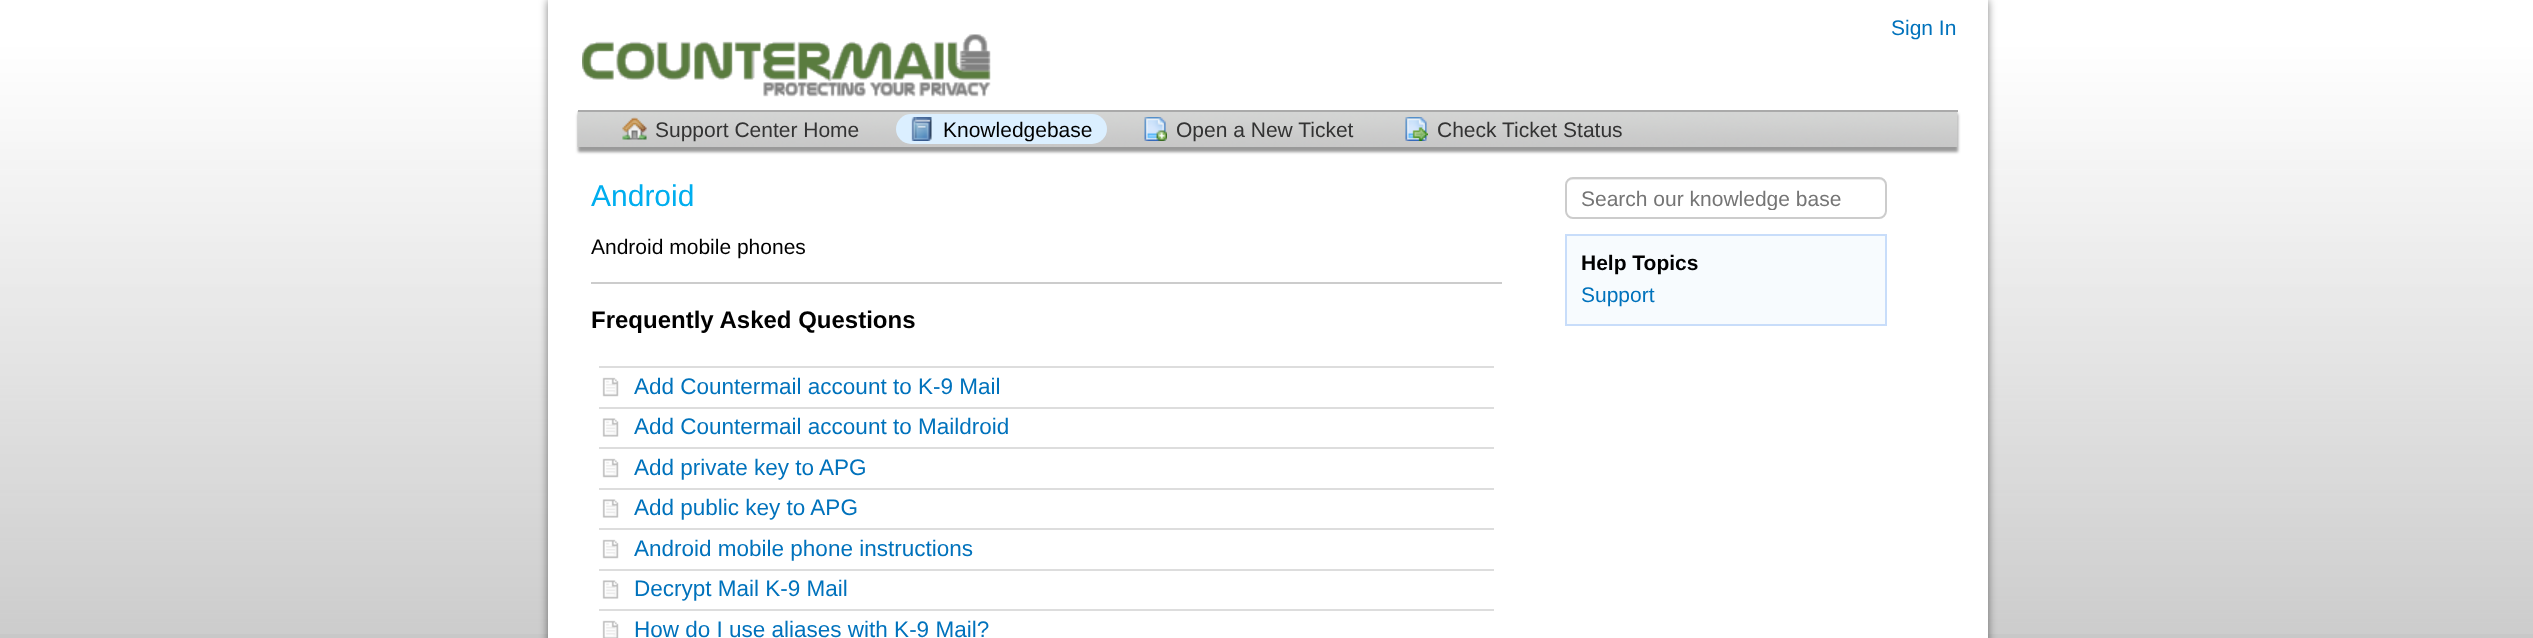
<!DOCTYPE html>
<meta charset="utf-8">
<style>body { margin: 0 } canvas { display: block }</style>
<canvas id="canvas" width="2533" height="638"></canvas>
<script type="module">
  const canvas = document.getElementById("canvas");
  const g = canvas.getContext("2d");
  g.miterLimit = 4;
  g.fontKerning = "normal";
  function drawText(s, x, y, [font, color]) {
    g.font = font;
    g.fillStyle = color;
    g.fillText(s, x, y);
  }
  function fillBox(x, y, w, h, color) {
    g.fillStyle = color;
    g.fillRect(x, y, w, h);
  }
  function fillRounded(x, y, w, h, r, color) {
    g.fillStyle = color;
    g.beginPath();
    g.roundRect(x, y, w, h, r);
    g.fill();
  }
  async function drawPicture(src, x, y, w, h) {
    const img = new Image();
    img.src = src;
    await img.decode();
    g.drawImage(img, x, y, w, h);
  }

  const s1 = ["21px Liberation Sans", "#0072BC"];
  const s2 = ["21px Liberation Sans", "#333333"];
  const s3 = ["21px Liberation Sans", "#000000"];
  const s4 = ["30px Liberation Sans", "#00AEEF"];
  const s5 = ["bold 24px Liberation Sans", "#000000"];
  const s6 = ["22.5px Liberation Sans", "#0072BC"];
  const s7 = ["21px Liberation Sans", "#757575"];
  const s8 = ["bold 21px Liberation Sans", "#000000"];

  fillBox(0, 0, 2533, 638, "#C8C8C8");
  await drawPicture("pic1.png", 0, 0, 2533, 634);
  g.fillStyle = "rgba(0, 0, 0, 0.5)";
  g.filter = "blur(4.5px)";
  g.beginPath();
  g.rect(548, 0, 1440, 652);
  g.fill();
  g.filter = "none";
  fillBox(548, 0, 1440, 638, "#FFFFFF");
  drawText("Sign In", 1891, 35, s1);
  await drawPicture("pic2.png", 582, 34, 409, 63);
  g.fillStyle = "rgba(0, 0, 0, 0.4)";
  g.filter = "blur(1.5px)";
  g.beginPath();
  g.rect(578, 114, 1380, 38);
  g.fill();
  g.filter = "none";
  await drawPicture("pic3.png", 577, 111, 1381, 36);
  fillBox(578, 110, 1380, 2, "#AAAAAA");
  await drawPicture("pic4.png", 622, 117, 25, 23);
  drawText("Support Center Home", 655, 137, s2);
  fillRounded(896, 114, 211, 30, 15, "#DBEFFF");
  await drawPicture("pic5.png", 911, 117, 21, 24);
  drawText("Knowledgebase", 943, 137, s3);
  await drawPicture("pic6.png", 1144, 117, 23, 24);
  drawText("Open a New Ticket", 1176, 137, s2);
  await drawPicture("pic7.png", 1405, 117, 23, 24);
  drawText("Check Ticket Status", 1437, 137, s2);
  drawText("Android", 591, 206, s4);
  drawText("Android mobile phones", 591, 254, s3);
  fillBox(591, 282, 911, 2, "#CCCCCC");
  drawText("Frequently Asked Questions", 591, 328, s5);
  fillBox(599, 366, 895, 2, "#DDDDDD");
  await drawPicture("pic8.png", 602, 377, 17, 20);
  fillBox(599, 407, 895, 2, "#DDDDDD");
  drawText("Add Countermail account to K-9 Mail", 634, 394, s6);
  await drawPicture("pic9.png", 602, 418, 17, 19);
  fillBox(599, 447, 895, 2, "#DDDDDD");
  drawText("Add Countermail account to Maildroid", 634, 434, s6);
  await drawPicture("pic8.png", 602, 458, 17, 20);
  fillBox(599, 488, 895, 2, "#DDDDDD");
  drawText("Add private key to APG", 634, 475, s6);
  await drawPicture("pic9.png", 602, 499, 17, 19);
  fillBox(599, 528, 895, 2, "#DDDDDD");
  drawText("Add public key to APG", 634, 515, s6);
  await drawPicture("pic8.png", 602, 539, 17, 20);
  fillBox(599, 569, 895, 2, "#DDDDDD");
  drawText("Android mobile phone instructions", 634, 556, s6);
  await drawPicture("pic9.png", 602, 580, 17, 19);
  fillBox(599, 609, 895, 2, "#DDDDDD");
  drawText("Decrypt Mail K-9 Mail", 634, 596, s6);
  await drawPicture("pic10.png", 602, 620, 17, 18);
  drawText("How do I use aliases with K-9 Mail?", 634, 637, s6);
  g.fillStyle = "#ECECEC";
  g.beginPath();
  g.moveTo(1572, 180);
  g.lineTo(1880, 180);
  g.bezierCurveTo(1883, 180, 1886, 183, 1886, 186);
  g.lineTo(1886, 185);
  g.bezierCurveTo(1886, 182, 1883, 179, 1880, 179);
  g.lineTo(1572, 179);
  g.bezierCurveTo(1569, 179, 1566, 182, 1566, 185);
  g.lineTo(1566, 186);
  g.bezierCurveTo(1566, 183, 1569, 180, 1572, 180);
  g.closePath();
  g.fill();
  g.beginPath();
  g.roundRect(1566, 178, 320, 40, 7);
  g.strokeStyle = "#CCCCCC";
  g.lineWidth = 2;
  g.stroke();
  g.save();
  g.beginPath();
  g.rect(1581, 186, 290, 24);
  g.clip();
  drawText("Search our knowledge base", 1581, 206, s7);
  g.restore();
  g.fillStyle = "#F7FBFE";
  g.beginPath();
  g.rect(1566, 235, 320, 90);
  g.fill();
  g.strokeStyle = "#C8DDFA";
  g.stroke();
  drawText("Help Topics", 1581, 270, s8);
  drawText("Support", 1581, 302, s1);
</script>
